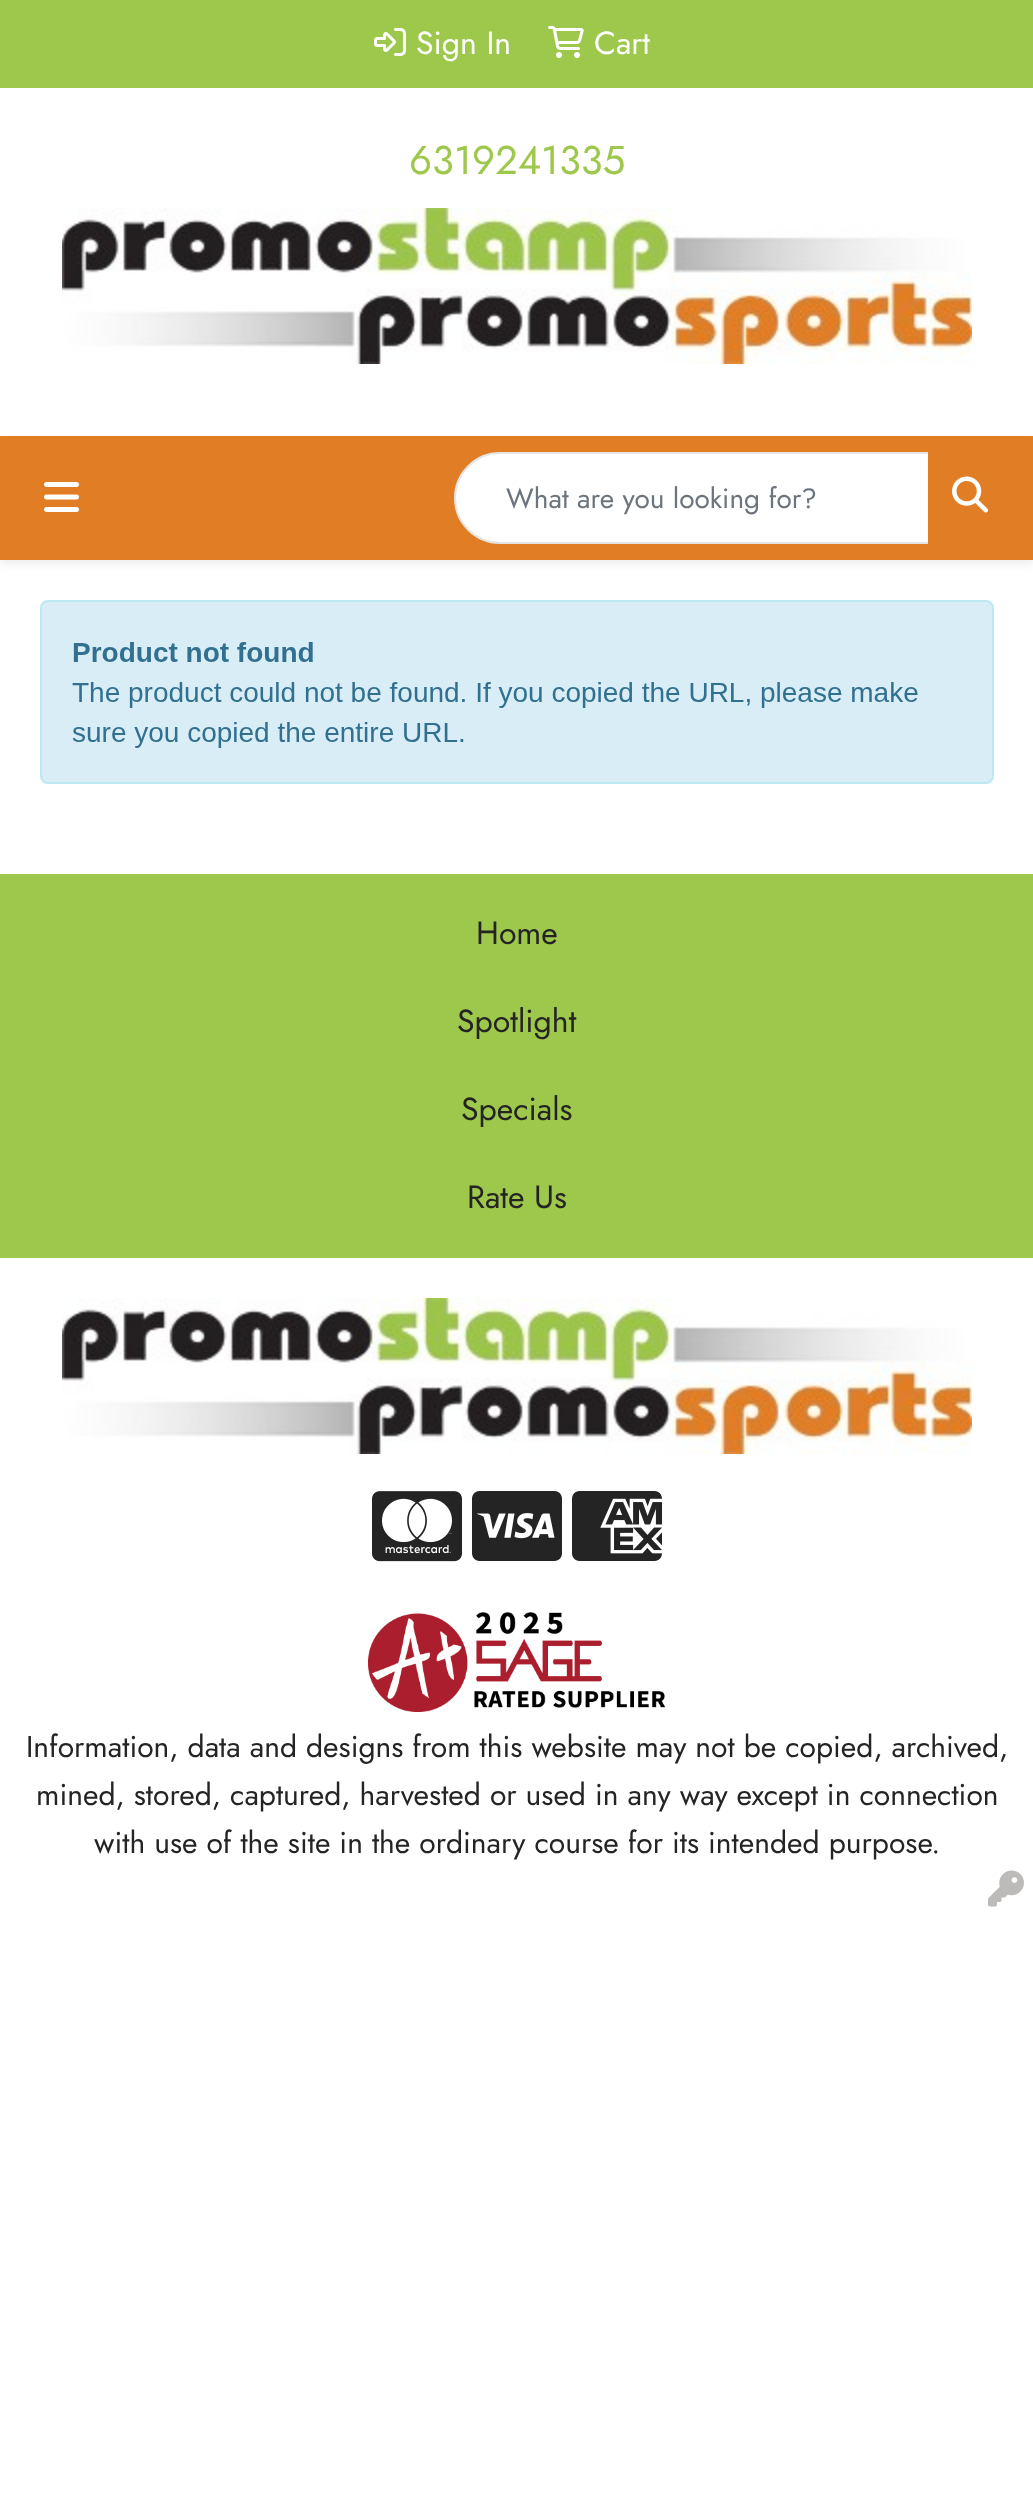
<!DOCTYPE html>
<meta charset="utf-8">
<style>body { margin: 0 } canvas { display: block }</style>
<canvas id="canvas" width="1033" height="2496"></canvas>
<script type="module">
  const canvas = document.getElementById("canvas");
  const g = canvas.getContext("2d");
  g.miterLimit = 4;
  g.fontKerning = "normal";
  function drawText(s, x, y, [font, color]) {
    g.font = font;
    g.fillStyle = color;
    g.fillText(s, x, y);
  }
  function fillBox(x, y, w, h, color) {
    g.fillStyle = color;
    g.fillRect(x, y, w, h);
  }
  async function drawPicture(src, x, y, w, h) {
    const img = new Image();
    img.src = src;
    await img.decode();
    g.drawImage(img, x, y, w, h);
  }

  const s1 = ["32px Jost", "#FFFFFF"];
  const s2 = ["40px Jost", "#9EC84C"];
  const s3 = ["28px Jost", "#6C757D"];
  const s4 = ["32px Jost", "#242424"];
  const s5 = ["30px Jost", "#242424"];

  fillBox(0, 0, 1033, 2496, "#FFFFFF");
  fillBox(0, 0, 1033, 88, "#9EC84C");
  await drawPicture("pic1.png", 374, 28, 32, 28);
  drawText("Sign In", 416, 54, s1);
  await drawPicture("pic2.png", 548, 26, 36, 32);
  drawText("Cart", 594, 54, s1);
  drawText("6319241335", 409, 174, s2);
  await drawPicture("pic3.png", 62, 208, 910, 156);
  g.fillStyle = "rgba(0, 0, 0, 0.07)";
  g.filter = "blur(4px)";
  g.beginPath();
  g.rect(0, 440, 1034, 124);
  g.fill();
  g.filter = "none";
  fillBox(0, 436, 1033, 124, "#E17D25");
  await drawPicture("pic4.png", 44, 482, 35, 30);
  g.fillStyle = "#FFFFFF";
  g.beginPath();
  g.roundRect(455, 453, 474, 90, [45, 0, 0, 45]);
  g.fill();
  g.strokeStyle = "#E4E4E4";
  g.lineWidth = 2;
  g.stroke();
  drawText("What are you looking for?", 506, 508, s3);
  g.fillStyle = "#E17D25";
  g.beginPath();
  g.roundRect(928, 454, 84, 88, [0, 44, 44, 0]);
  g.fill();
  g.beginPath();
  g.moveTo(928, 452);
  g.lineTo(968, 452);
  g.bezierCurveTo(993, 452, 1014, 473, 1014, 498);
  g.bezierCurveTo(1014, 523, 993, 544, 968, 544);
  g.lineTo(928, 544);
  g.closePath();
  g.moveTo(928, 454);
  g.lineTo(968, 454);
  g.bezierCurveTo(992, 454, 1012, 474, 1012, 498);
  g.bezierCurveTo(1012, 522, 992, 542, 968, 542);
  g.lineTo(928, 542);
  g.closePath();
  g.fill("evenodd");
  await drawPicture("pic5.png", 952, 476, 36, 37);
  await drawPicture("pic6.png", 40, 600, 954, 184);
  fillBox(0, 874, 1033, 384, "#9EC84C");
  drawText("Home", 476, 944, s4);
  drawText("Spotlight", 457, 1032, s4);
  drawText("Specials", 461, 1120, s4);
  drawText("Rate Us", 467, 1208, s4);
  await drawPicture("pic3.png", 62, 1298, 910, 156);
  await drawPicture("pic7.png", 372, 1491, 90, 71);
  await drawPicture("pic8.png", 472, 1491, 90, 70);
  await drawPicture("pic9.png", 572, 1491, 90, 70);
  await drawPicture("pic10.png", 368, 1612, 298, 100);
  drawText("Information, data and designs from this website may not be copied, archived,", 26, 1757, s5);
  drawText("mined, stored, captured, harvested or used in any way except in connection", 36, 1805, s5);
  drawText("with use of the site in the ordinary course for its intended purpose.", 94, 1853, s5);
  await drawPicture("pic11.png", 988, 1870, 36, 37);
</script>
